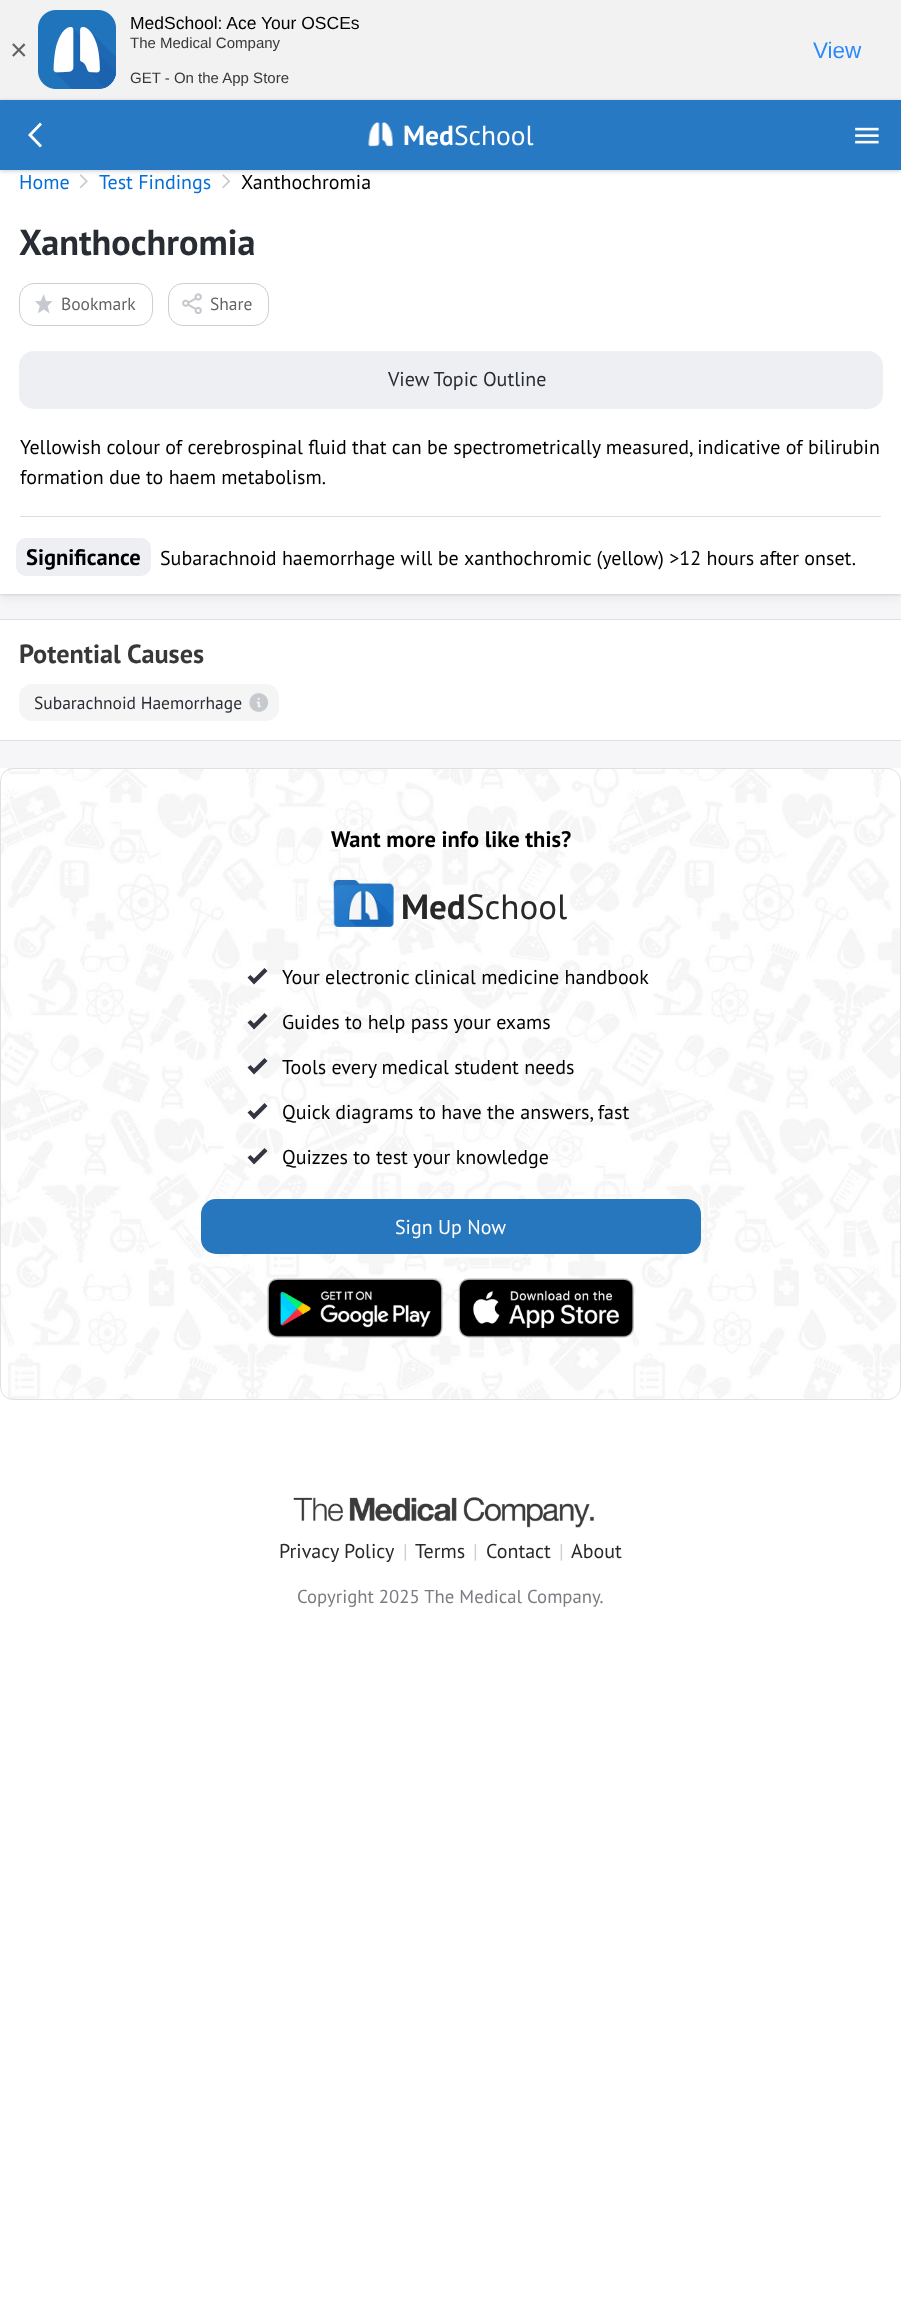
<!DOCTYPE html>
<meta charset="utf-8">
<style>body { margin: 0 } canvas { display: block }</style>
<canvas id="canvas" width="901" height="2305"></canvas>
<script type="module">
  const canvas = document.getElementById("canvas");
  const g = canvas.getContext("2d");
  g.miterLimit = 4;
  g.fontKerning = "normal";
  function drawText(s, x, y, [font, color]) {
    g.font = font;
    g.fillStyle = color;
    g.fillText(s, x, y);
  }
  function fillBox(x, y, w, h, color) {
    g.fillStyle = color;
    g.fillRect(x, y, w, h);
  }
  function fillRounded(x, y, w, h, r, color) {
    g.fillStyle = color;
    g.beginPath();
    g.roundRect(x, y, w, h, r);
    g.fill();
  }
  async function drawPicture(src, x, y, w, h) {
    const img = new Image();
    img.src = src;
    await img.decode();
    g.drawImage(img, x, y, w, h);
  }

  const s1 = ["30px Liberation Sans", "#616367"];
  const s2 = ["17.5px Liberation Sans", "#000000"];
  const s3 = ["15px Liberation Sans", "#383838"];
  const s4 = ["22.5px Liberation Sans", "#2A89FD"];
  const s5 = ["bold 27.5px PT Sans", "#FFFFFF"];
  const s6 = ["27.5px PT Sans", "#FFFFFF"];
  const s7 = ["20px PT Sans", "#046FDA"];
  const s8 = ["20px PT Sans", "#000000"];
  const s9 = ["bold 36.25px PT Sans", "#282C33"];
  const s10 = ["17.5px PT Sans", "#616367"];
  const s11 = ["20px PT Sans", "#282C33"];
  const s12 = ["bold 22.5px PT Sans", "#000000"];
  const s13 = ["bold 26.25px PT Sans", "#383838"];
  const s14 = ["17.5px PT Sans", "#282C33"];
  const s15 = ["bold 35px PT Sans", "#282828"];
  const s16 = ["35px PT Sans", "#282828"];
  const s17 = ["20px PT Sans", "#FFFFFF"];
  const s18 = ["20px PT Sans", "#282828"];
  const s19 = ["20px PT Sans", "#CECECE"];
  const s20 = ["18.75px PT Sans", "#797C81"];

  fillBox(0, 0, 901, 2305, "#FFFFFF");
  fillBox(0, 0, 901, 100, "#F2F2F2");
  drawText("×", 10, 60, s1);
  await drawPicture("pic1.png", 38, 10, 78, 79);
  drawText("MedSchool: Ace Your OSCEs", 130, 29, s2);
  drawText("The Medical Company", 130, 48, s3);
  drawText("GET - On the App Store", 130, 83, s3);
  drawText("View", 813, 58, s4);
  await drawPicture("pic4.png", 79, 174, 9, 15);
  await drawPicture("pic5.png", 222, 174, 9, 15);
  g.fillStyle = "rgba(0, 0, 0, 0.2)";
  g.filter = "blur(2px)";
  g.beginPath();
  g.rect(0, 101, 901, 70);
  g.fill();
  g.filter = "none";
  fillBox(0, 100, 901, 70, "#2779C4");
  g.fillStyle = "#FFFFFF";
  g.beginPath();
  g.moveTo(40, 122.5);
  g.lineTo(28, 135);
  g.lineTo(40, 147.5);
  g.lineTo(42, 145.5);
  g.lineTo(32, 135);
  g.lineTo(42, 124.5);
  g.closePath();
  g.fill();
  await drawPicture("pic2.png", 368, 122, 26, 25);
  drawText("Med", 403, 145, s5);
  drawText("School", 454, 145, s6);
  await drawPicture("pic3.png", 855, 127, 24, 17);
  drawText("Home", 19, 189, s7);
  drawText("Test Findings", 99, 189, s7);
  drawText("Xanthochromia", 241, 189, s8);
  drawText("Xanthochromia", 19, 255, s9);
  g.beginPath();
  g.roundRect(19.5, 283.5, 133, 42, 14.5);
  g.strokeStyle = "#CECECE";
  g.stroke();
  await drawPicture("pic6.png", 35, 294, 18, 20);
  drawText("Bookmark", 61, 310, s10);
  g.beginPath();
  g.roundRect(168.5, 283.5, 100, 42, 14.5);
  g.stroke();
  await drawPicture("pic7.png", 182, 293, 20, 22);
  drawText("Share", 210, 310, s10);
  fillRounded(19, 351, 864, 58, 15, "#EEEFF2");
  drawText("View Topic Outline", 388, 386, s11);
  fillBox(0, 594, 901, 174, "#F6F6F8");
  g.fillStyle = "rgba(0, 0, 0, 0.1)";
  g.filter = "blur(1px)";
  g.beginPath();
  g.rect(0, 433, 901, 162);
  g.fill();
  g.filter = "none";
  g.fillStyle = "rgba(0, 0, 0, 0.05)";
  g.filter = "blur(5px)";
  g.beginPath();
  g.rect(0, 436, 901, 163);
  g.fill();
  g.filter = "none";
  fillBox(0, 431, 901, 163, "#FFFFFF");
  drawText("Yellowish colour of cerebrospinal fluid that can be spectrometrically measured, indicative of bilirubin", 20, 454, s8);
  drawText("formation due to haem metabolism.", 20, 484, s8);
  fillBox(20, 516, 861, 1, "#DDDDDD");
  fillRounded(16, 538, 135, 38, 10, "#EEEFF2");
  drawText("Significance", 26, 565, s12);
  drawText("Subarachnoid haemorrhage will be xanthochromic (yellow) >12 hours after onset.", 160, 565, s8);
  fillBox(0, 620, 901, 120, "#FFFFFF");
  fillBox(0, 619, 901, 1, "#E0E0E0");
  fillBox(0, 740, 901, 1, "#E0E0E0");
  drawText("Potential Causes", 19, 663, s13);
  fillRounded(19, 684, 260, 37, 13, "#F5F5F5");
  await drawPicture("pic8.png", 249, 693, 20, 19);
  drawText("Subarachnoid Haemorrhage", 34, 709, s14);
  await drawPicture("pic9.png", 0, 768, 901, 632);
  g.beginPath();
  g.roundRect(0.5, 768.5, 900, 631, 12.5);
  g.strokeStyle = "#E0E0E0";
  g.stroke();
  drawText("Want more info like this?", 331, 847, s12);
  await drawPicture("pic10.png", 333, 880, 61, 47);
  drawText("Med", 401, 919, s15);
  drawText("School", 466, 919, s16);
  g.fillStyle = "#333640";
  g.beginPath();
  g.moveTo(254, 984.5);
  g.lineTo(247.5, 977.5);
  g.lineTo(250.5, 975);
  g.lineTo(254, 978.5);
  g.lineTo(264.5, 968);
  g.lineTo(267.5, 971);
  g.closePath();
  g.moveTo(254, 1029.5);
  g.lineTo(247.5, 1022.5);
  g.lineTo(250.5, 1020);
  g.lineTo(254, 1023.5);
  g.lineTo(264.5, 1013);
  g.lineTo(267.5, 1016);
  g.closePath();
  g.fill();
  drawText("Your electronic clinical medicine handbook", 282, 984, s8);
  drawText("Guides to help pass your exams", 282, 1029, s8);
  g.fillStyle = "#333640";
  g.beginPath();
  g.moveTo(254, 1074.5);
  g.lineTo(247.5, 1067.5);
  g.lineTo(250.5, 1065);
  g.lineTo(254, 1068.5);
  g.lineTo(264.5, 1058);
  g.lineTo(267.5, 1061);
  g.closePath();
  g.moveTo(254, 1119.5);
  g.lineTo(247.5, 1112.5);
  g.lineTo(250.5, 1110);
  g.lineTo(254, 1113.5);
  g.lineTo(264.5, 1103);
  g.lineTo(267.5, 1106);
  g.closePath();
  g.fill();
  drawText("Tools every medical student needs", 282, 1074, s8);
  drawText("Quick diagrams to have the answers, fast", 282, 1119, s8);
  g.fillStyle = "#333640";
  g.beginPath();
  g.moveTo(254, 1164.5);
  g.lineTo(247.5, 1157.5);
  g.lineTo(250.5, 1155);
  g.lineTo(254, 1158.5);
  g.lineTo(264.5, 1148);
  g.lineTo(267.5, 1151);
  g.closePath();
  g.fill();
  drawText("Quizzes to test your knowledge", 282, 1164, s8);
  fillRounded(201, 1199, 500, 55, 15, "#2777BE");
  drawText("Sign Up Now", 395, 1234, s17);
  await drawPicture("pic11.png", 267, 1278, 176, 60);
  await drawPicture("pic12.png", 458, 1278, 176, 60);
  await drawPicture("pic13.png", 293, 1497, 301, 31);
  drawText("Privacy Policy", 279, 1558, s18);
  drawText("|", 403, 1558, s19);
  drawText("Terms", 415, 1558, s18);
  drawText("|", 473, 1558, s19);
  drawText("Contact", 486, 1558, s18);
  drawText("|", 559, 1558, s19);
  drawText("About", 571, 1558, s18);
  drawText("Copyright 2025 The Medical Company.", 297, 1603, s20);
</script>
